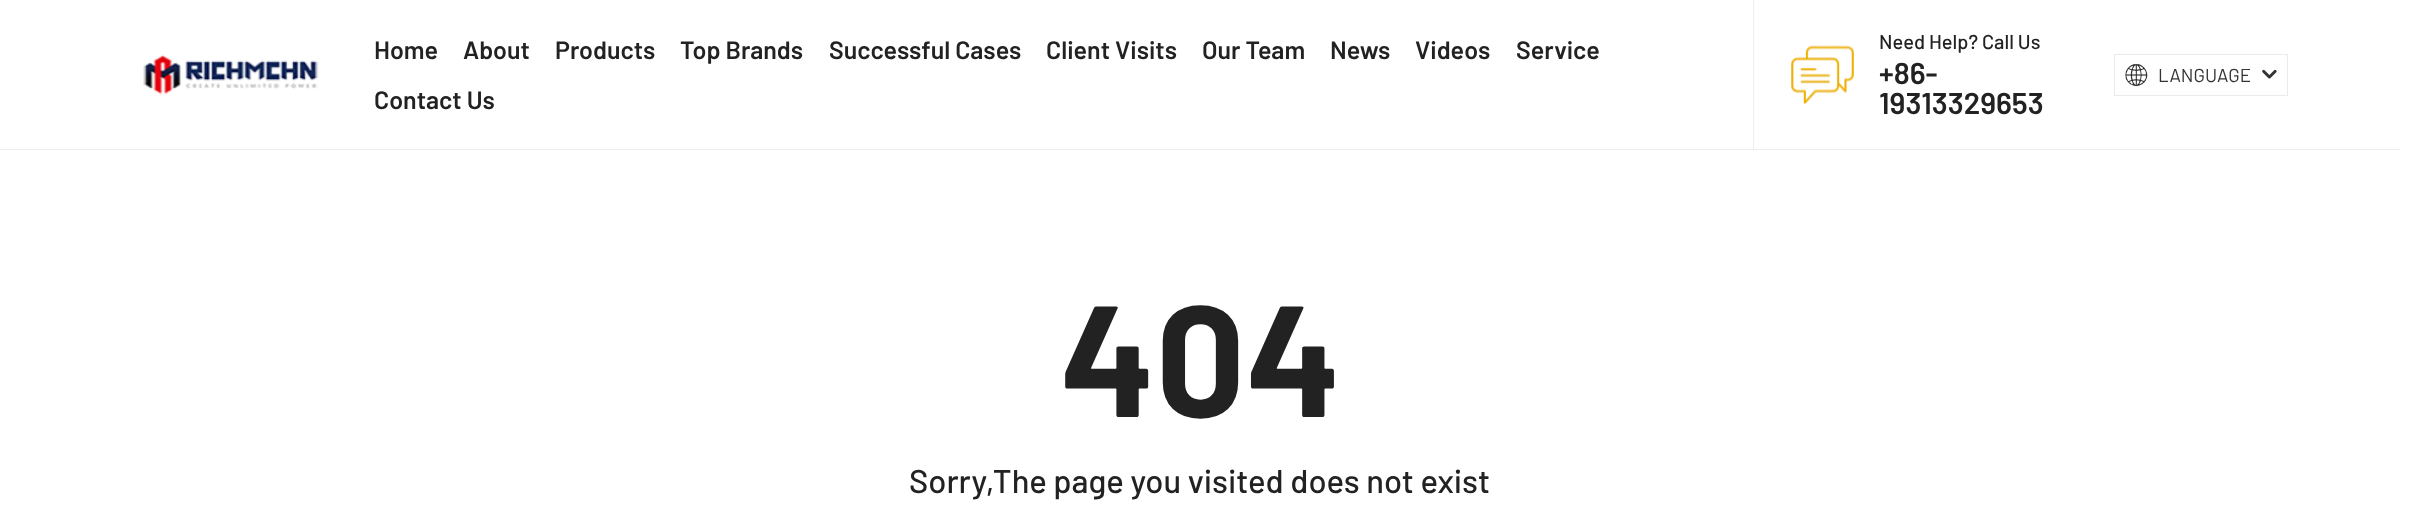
<!DOCTYPE html>
<meta charset="utf-8">
<style>body { margin: 0 } canvas { display: block }</style>
<canvas id="canvas" width="2419" height="510"></canvas>
<script type="module">
  const canvas = document.getElementById("canvas");
  const g = canvas.getContext("2d");
  g.miterLimit = 4;
  g.fontKerning = "normal";
  function drawText(s, x, y, [font, color]) {
    g.font = font;
    g.fillStyle = color;
    g.fillText(s, x, y);
  }
  function fillBox(x, y, w, h, color) {
    g.fillStyle = color;
    g.fillRect(x, y, w, h);
  }
  async function drawPicture(src, x, y, w, h) {
    const img = new Image();
    img.src = src;
    await img.decode();
    g.drawImage(img, x, y, w, h);
  }

  const s1 = ["600 25px Barlow", "#222222"];
  const s2 = ["500 20px Barlow", "#222222"];
  const s3 = ["600 30px Barlow", "#222222"];
  const s4 = ["18.75px Barlow", "#333333"];
  const s5 = ["bold 158px Barlow", "#222222"];
  const s6 = ["500 32.75px Barlow", "#222222"];

  fillBox(0, 0, 2419, 510, "#FFFFFF");
  fillBox(0, 149, 2400, 1, "#EEEEEE");
  await drawPicture("pic1.png", 143, 54, 176, 42);
  drawText("Home", 374, 59, s1);
  drawText("About", 463, 59, s1);
  drawText("Products", 555, 59, s1);
  drawText("Top Brands", 680, 59, s1);
  drawText("Successful Cases", 829, 59, s1);
  drawText("Client Visits", 1046, 59, s1);
  drawText("Our Team", 1202, 59, s1);
  drawText("News", 1330, 59, s1);
  drawText("Videos", 1415, 59, s1);
  drawText("Service", 1516, 59, s1);
  drawText("Contact Us", 374, 109, s1);
  fillBox(1753, 0, 1, 149, "#EEEEEE");
  await drawPicture("pic2.png", 1791, 45, 63, 60);
  drawText("Need Help? Call Us", 1879, 49, s2);
  drawText("+86-", 1879, 84, s3);
  drawText("19313329653", 1879, 114, s3);
  g.strokeStyle = "#EBEBEB";
  g.strokeRect(2114.5, 54.5, 173, 41);
  await drawPicture("pic3.png", 2125, 63, 23, 24);
  drawText("LANGUAGE", 2158, 82, s4);
  await drawPicture("pic4.png", 2262, 69, 15, 10);
  drawText("404", 1060, 417, s5);
  drawText("Sorry,The page you visited does not exist", 909, 493, s6);
</script>
